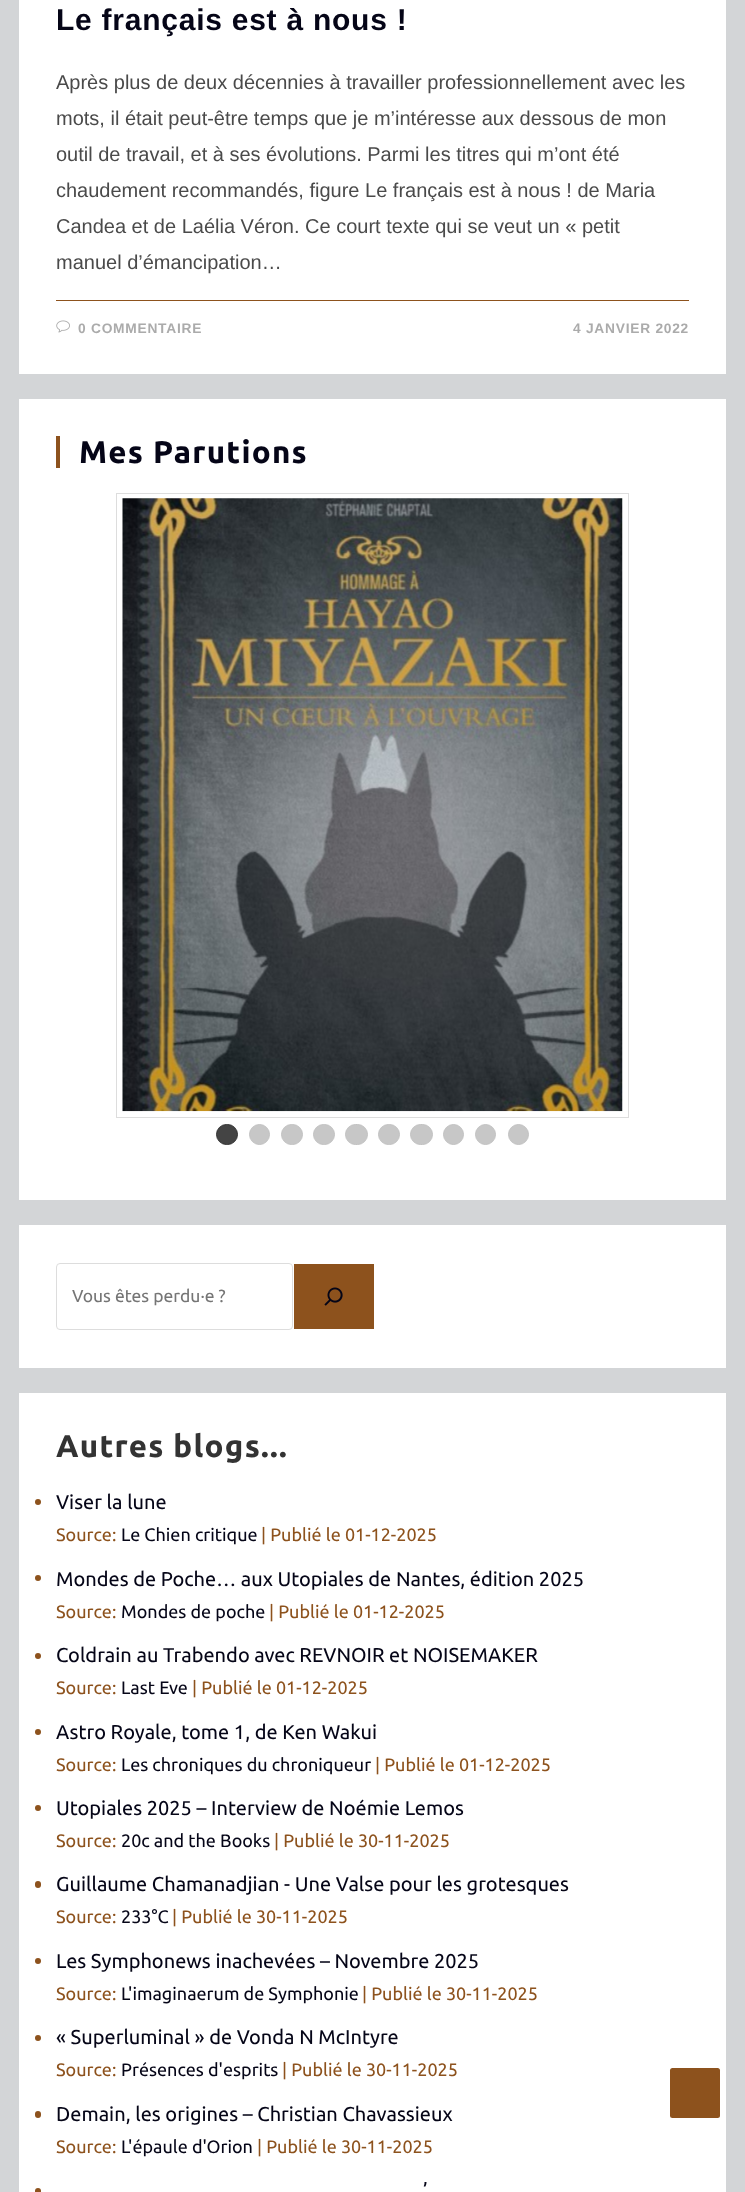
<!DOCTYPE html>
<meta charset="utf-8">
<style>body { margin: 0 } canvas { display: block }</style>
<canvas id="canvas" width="745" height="2192"></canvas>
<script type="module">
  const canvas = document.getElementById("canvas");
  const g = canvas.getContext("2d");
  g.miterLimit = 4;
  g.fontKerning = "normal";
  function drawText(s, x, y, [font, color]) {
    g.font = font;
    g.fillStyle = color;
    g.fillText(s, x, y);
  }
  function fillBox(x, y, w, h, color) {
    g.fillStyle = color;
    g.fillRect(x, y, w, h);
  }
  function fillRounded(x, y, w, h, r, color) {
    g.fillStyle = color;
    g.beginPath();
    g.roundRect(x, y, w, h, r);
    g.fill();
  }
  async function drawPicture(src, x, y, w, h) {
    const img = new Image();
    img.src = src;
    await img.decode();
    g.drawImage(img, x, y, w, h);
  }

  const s1 = ["bold 30px Liberation Sans", "#050517"];
  const s2 = ["20px Liberation Sans", "#4A4A4A"];
  const s3 = ["bold 13.75px Liberation Sans", "#ABABAB"];
  const s4 = ["bold 31.25px Ubuntu", "#050517"];
  const s5 = ["17.5px Ubuntu", "#757575"];
  const s6 = ["bold 31.25px Ubuntu", "#333333"];
  const s7 = ["20px Ubuntu", "#050517"];
  const s8 = ["18px Ubuntu", "#8D521D"];
  const s9 = ["18px Ubuntu", "#050517"];

  fillBox(0, 0, 745, 2192, "#D3D5D7");
  fillBox(19, 0, 707, 374, "#FFFFFF");
  g.letterSpacing = "0.75px";
  drawText("Le français est à nous !", 56, 30, s1);
  g.letterSpacing = "0px";
  drawText("Après plus de deux décennies à travailler professionnellement avec les", 56, 89, s2);
  drawText("mots, il était peut-être temps que je m’intéresse aux dessous de mon", 56, 125, s2);
  drawText("outil de travail, et à ses évolutions. Parmi les titres qui m’ont été", 56, 161, s2);
  drawText("chaudement recommandés, figure Le français est à nous ! de Maria", 56, 197, s2);
  drawText("Candea et de Laélia Véron. Ce court texte qui se veut un « petit", 56, 233, s2);
  drawText("manuel d’émancipation…", 56, 269, s2);
  fillBox(56, 300, 633, 1, "#8D521D");
  await drawPicture("pic1.png", 56, 320, 14, 13);
  g.letterSpacing = "0.75px";
  drawText("0 COMMENTAIRE", 78, 333, s3);
  drawText("4 JANVIER 2022", 573, 333, s3);
  fillBox(19, 399, 707, 801, "#FFFFFF");
  fillBox(56, 436, 4, 32, "#8D521D");
  g.letterSpacing = "1.25px";
  drawText("Mes Parutions", 79, 463, s4);
  g.strokeStyle = "#DDDDDD";
  g.strokeRect(116.5, 493.5, 512, 624);
  await drawPicture("pic2.png", 122, 498, 501, 614);
  g.fillStyle = "#444444";
  g.beginPath();
  g.roundRect(216.5, 1124.5, 21, 20, 10);
  g.fill();
  g.strokeStyle = "#333333";
  g.stroke();
  g.fillStyle = "#C7C7C7";
  g.beginPath();
  g.arc(259.5, 1134.5, 10, 0, Math.PI * 2);
  g.fill();
  g.strokeStyle = "#C2C2C2";
  g.stroke();
  g.beginPath();
  g.roundRect(281.5, 1124.5, 21, 20, 10);
  g.fill();
  g.stroke();
  g.beginPath();
  g.roundRect(313.5, 1124.5, 21, 20, 10);
  g.fill();
  g.stroke();
  g.beginPath();
  g.roundRect(345.5, 1124.5, 22, 20, 10);
  g.fill();
  g.stroke();
  g.beginPath();
  g.roundRect(378.5, 1124.5, 21, 20, 10);
  g.fill();
  g.stroke();
  g.beginPath();
  g.roundRect(410.5, 1124.5, 22, 20, 10);
  g.fill();
  g.stroke();
  g.beginPath();
  g.arc(453.5, 1134.5, 10, 0, Math.PI * 2);
  g.fill();
  g.stroke();
  g.beginPath();
  g.arc(485.5, 1134.5, 10, 0, Math.PI * 2);
  g.fill();
  g.stroke();
  g.beginPath();
  g.arc(518.5, 1134.5, 10, 0, Math.PI * 2);
  g.fill();
  g.stroke();
  fillBox(19, 1225, 707, 143, "#FFFFFF");
  g.beginPath();
  g.roundRect(56.5, 1263.5, 236, 66, 3.5);
  g.strokeStyle = "#DDDDDD";
  g.stroke();
  g.letterSpacing = "0px";
  drawText("Vous êtes perdu·e ?", 72, 1302, s5);
  fillBox(294, 1264, 80, 65, "#8D521D");
  await drawPicture("pic3.png", 324, 1287, 19, 19);
  fillBox(19, 1393, 707, 799, "#FFFFFF");
  g.letterSpacing = "1.25px";
  drawText("Autres blogs...", 56, 1457, s6);
  g.fillStyle = "#8D521D";
  g.beginPath();
  g.arc(38, 1502, 3, 0, Math.PI * 2);
  g.fill();
  g.letterSpacing = "0px";
  drawText("Viser la lune", 56, 1509, s7);
  drawText("Source:", 56, 1541, s8);
  drawText("Le Chien critique", 121, 1541, s9);
  drawText("| Publié le 01-12-2025", 261, 1541, s8);
  g.beginPath();
  g.arc(38, 1578, 3, 0, Math.PI * 2);
  g.fill();
  drawText("Mondes de Poche… aux Utopiales de Nantes, édition 2025", 56, 1586, s7);
  drawText("Source:", 56, 1618, s8);
  drawText("Mondes de poche", 121, 1618, s9);
  drawText("| Publié le 01-12-2025", 269, 1618, s8);
  g.beginPath();
  g.arc(38, 1656, 3, 0, Math.PI * 2);
  g.fill();
  drawText("Coldrain au Trabendo avec REVNOIR et NOISEMAKER", 56, 1662, s7);
  drawText("Source:", 56, 1694, s8);
  drawText("Last Eve", 121, 1694, s9);
  drawText("| Publié le 01-12-2025", 192, 1694, s8);
  g.beginPath();
  g.arc(38, 1732, 3, 0, Math.PI * 2);
  g.fill();
  drawText("Astro Royale, tome 1, de Ken Wakui", 56, 1739, s7);
  drawText("Source:", 56, 1771, s8);
  drawText("Les chroniques du chroniqueur", 121, 1771, s9);
  drawText("| Publié le 01-12-2025", 375, 1771, s8);
  g.beginPath();
  g.arc(38, 1808, 3, 0, Math.PI * 2);
  g.fill();
  drawText("Utopiales 2025 – Interview de Noémie Lemos", 56, 1815, s7);
  drawText("Source:", 56, 1847, s8);
  drawText("20c and the Books", 121, 1847, s9);
  drawText("| Publié le 30-11-2025", 274, 1847, s8);
  fillRounded(35, 1881, 6, 7, 3, "#8D521D");
  drawText("Guillaume Chamanadjian - Une Valse pour les grotesques", 56, 1891, s7);
  drawText("Source:", 56, 1923, s8);
  drawText("233°C", 121, 1923, s9);
  drawText("| Publié le 30-11-2025", 172, 1923, s8);
  g.beginPath();
  g.arc(38, 1961, 3, 0, Math.PI * 2);
  g.fill();
  drawText("Les Symphonews inachevées – Novembre 2025", 56, 1968, s7);
  drawText("Source:", 56, 2000, s8);
  drawText("L'imaginaerum de Symphonie", 121, 2000, s9);
  drawText("| Publié le 30-11-2025", 362, 2000, s8);
  g.beginPath();
  g.arc(38, 2038, 3, 0, Math.PI * 2);
  g.fill();
  drawText("« Superluminal » de Vonda N McIntyre", 56, 2044, s7);
  drawText("Source:", 56, 2076, s8);
  drawText("Présences d'esprits", 121, 2076, s9);
  drawText("| Publié le 30-11-2025", 282, 2076, s8);
  fillRounded(35, 2111, 6, 7, 3, "#8D521D");
  drawText("Demain, les origines – Christian Chavassieux", 56, 2121, s7);
  drawText("Source:", 56, 2153, s8);
  drawText("L'épaule d'Orion", 121, 2153, s9);
  drawText("| Publié le 30-11-2025", 257, 2153, s8);
  drawText("’", 423, 2197, s7);
  g.fillStyle = "#8D521D";
  g.beginPath();
  g.arc(38, 2191, 3, 0, Math.PI * 2);
  g.fill();
  fillRounded(670, 2068, 50, 50, 2.5, "#8D521D");
</script>
